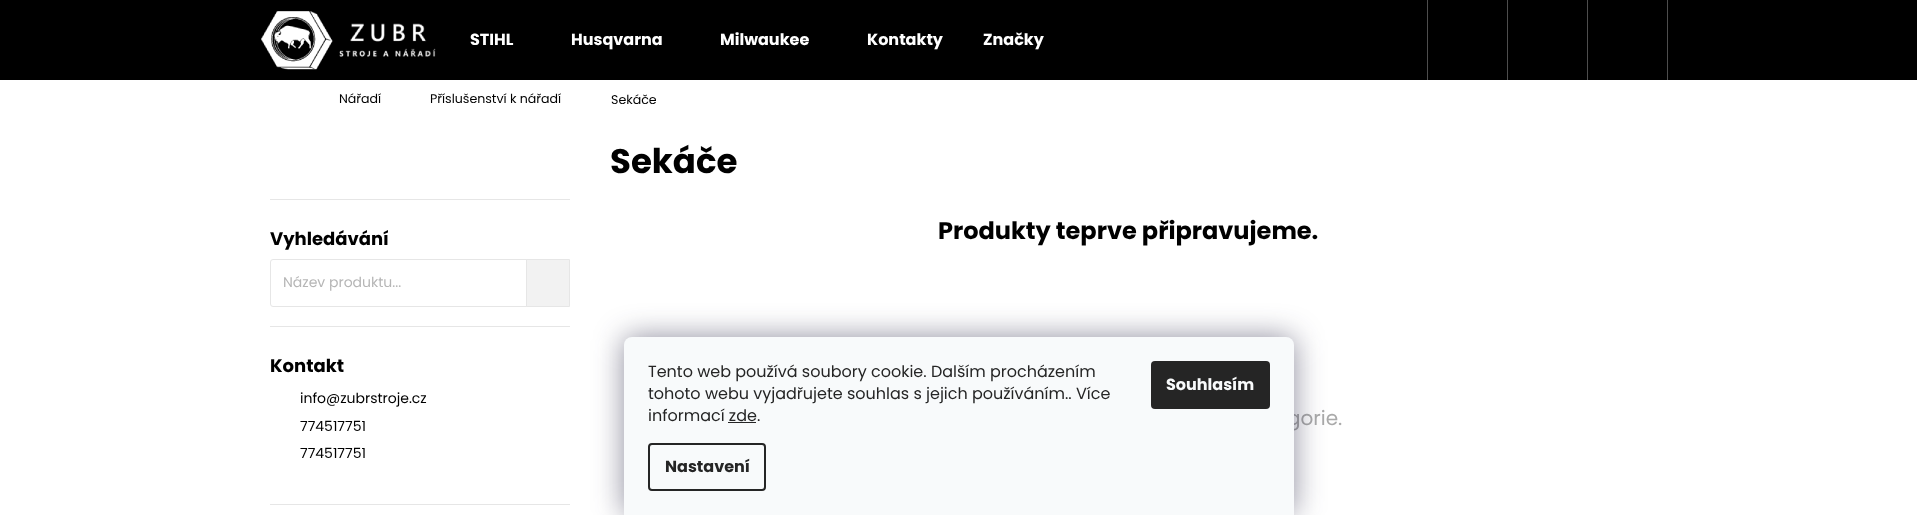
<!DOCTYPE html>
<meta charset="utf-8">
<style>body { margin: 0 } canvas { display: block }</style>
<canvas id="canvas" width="1917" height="515"></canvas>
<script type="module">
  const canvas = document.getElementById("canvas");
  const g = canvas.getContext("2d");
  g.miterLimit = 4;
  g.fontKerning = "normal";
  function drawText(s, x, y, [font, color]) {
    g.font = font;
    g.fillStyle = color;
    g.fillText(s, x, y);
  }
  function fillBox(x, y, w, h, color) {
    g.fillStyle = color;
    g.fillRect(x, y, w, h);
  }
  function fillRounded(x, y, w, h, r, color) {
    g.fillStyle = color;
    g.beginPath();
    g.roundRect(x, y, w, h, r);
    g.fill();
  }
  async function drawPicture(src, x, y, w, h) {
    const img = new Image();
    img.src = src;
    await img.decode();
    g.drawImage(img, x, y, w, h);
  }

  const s1 = ["bold 16px Poppins", "#FFFFFF"];
  const s2 = ["12.6px Poppins", "#000000"];
  const s3 = ["bold 18px Poppins", "#000000"];
  const s4 = ["14px Poppins", "#B6B6B6"];
  const s5 = ["14px Poppins", "#000000"];
  const s6 = ["bold 34px Poppins", "#000000"];
  const s7 = ["bold 24px Poppins", "#000000"];
  const s8 = ["20px Poppins", "#AAAAAA"];
  const s9 = ["16px Poppins", "#252525"];
  const s10 = ["bold 16px Poppins", "#252525"];
  const s11 = ["bold 16px Poppins", "#F8FAFB"];

  fillBox(0, 0, 1917, 515, "#FFFFFF");
  fillBox(0, 0, 1917, 80, "#000000");
  await drawPicture("pic1.png", 261, 11, 175, 59);
  drawText("STIHL", 470, 45, s1);
  drawText("Husqvarna", 571, 45, s1);
  drawText("Milwaukee", 720, 45, s1);
  drawText("Kontakty", 867, 45, s1);
  drawText("Značky", 983, 45, s1);
  fillBox(1667, 0, 1, 80, "#4D4D4D");
  fillBox(1427, 0, 1, 80, "#4D4D4D");
  fillBox(1507, 0, 1, 80, "#4D4D4D");
  fillBox(1587, 0, 1, 80, "#4D4D4D");
  drawText("Nářadí", 339, 103, s2);
  drawText("Příslušenství k nářadí", 430, 103, s2);
  drawText("Sekáče", 611, 104, s2);
  fillBox(270, 199, 300, 1, "#E6E6E6");
  drawText("Vyhledávání", 270, 245, s3);
  g.beginPath();
  g.roundRect(270.5, 259.5, 299, 47, 2.5);
  g.strokeStyle = "#E6E6E6";
  g.stroke();
  drawText("Název produktu...", 283, 287, s4);
  g.fillStyle = "#F2F2F2";
  g.beginPath();
  g.rect(526.5, 259.5, 43, 47);
  g.fill();
  g.stroke();
  fillBox(270, 326, 300, 1, "#E6E6E6");
  drawText("Kontakt", 270, 372, s3);
  drawText("info@zubrstroje.cz", 300, 403, s5);
  drawText("774517751", 300, 431, s5);
  drawText("774517751", 300, 458, s5);
  fillBox(270, 504, 300, 1, "#E6E6E6");
  drawText("Sekáče", 610, 173, s6);
  drawText("Produkty teprve připravujeme.", 938, 239, s7);
  drawText("gorie.", 1287, 425, s8);
  g.fillStyle = "rgba(27, 25, 57, 0.5)";
  g.filter = "blur(15px)";
  g.beginPath();
  g.roundRect(624, 337, 670, 178, 8);
  g.fill();
  g.filter = "none";
  g.fillStyle = "#F8FAFB";
  g.beginPath();
  g.roundRect(624, 337, 670, 178, [8, 8, 0, 0]);
  g.fill();
  drawText("Tento web používá soubory cookie. Dalším procházením", 648, 377, s9);
  drawText("tohoto webu vyjadřujete souhlas s jejich používáním.. Více", 648, 399, s9);
  drawText("informací zde.", 648, 421, s9);
  fillBox(728, 422, 28, 1, "#252525");
  g.beginPath();
  g.roundRect(649, 444, 116, 46, 3);
  g.strokeStyle = "#252525";
  g.lineWidth = 2;
  g.stroke();
  drawText("Nastavení", 665, 472, s10);
  fillRounded(1151, 361, 119, 48, 4, "#252525");
  drawText("Souhlasím", 1166, 390, s11);
</script>
